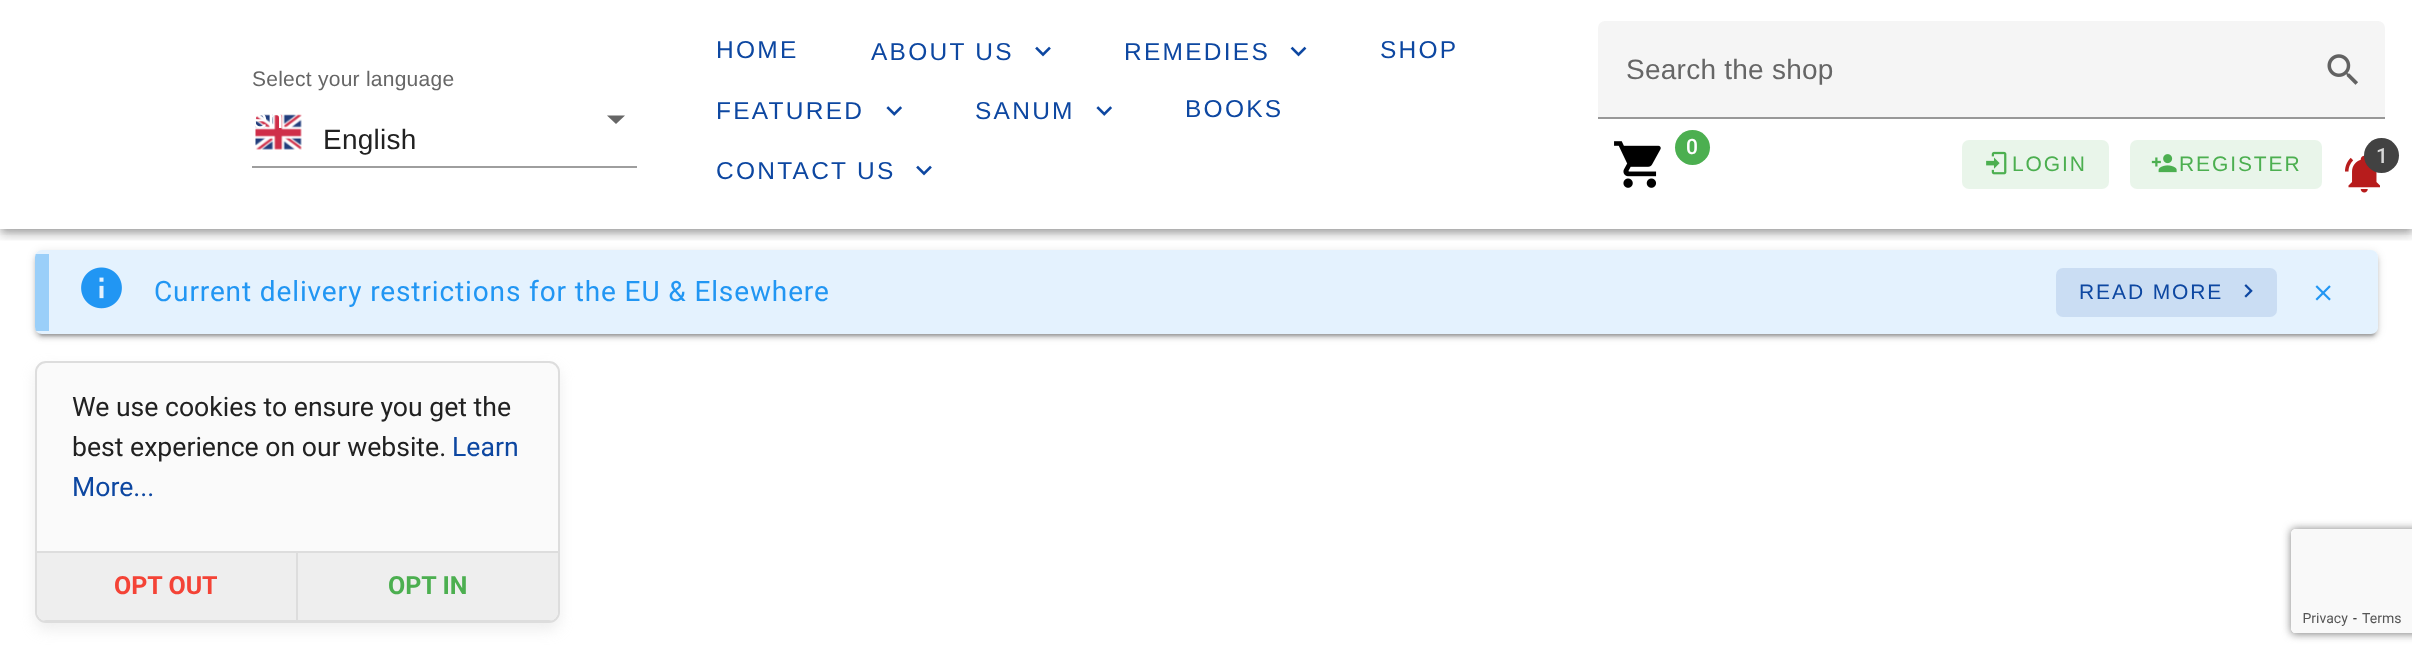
<!DOCTYPE html>
<meta charset="utf-8">
<style>body { margin: 0 } canvas { display: block }</style>
<canvas id="canvas" width="2412" height="658"></canvas>
<script type="module">
  const canvas = document.getElementById("canvas");
  const g = canvas.getContext("2d");
  g.miterLimit = 4;
  g.fontKerning = "normal";
  function drawText(s, x, y, [font, color]) {
    g.font = font;
    g.fillStyle = color;
    g.fillText(s, x, y);
  }
  function fillBox(x, y, w, h, color) {
    g.fillStyle = color;
    g.fillRect(x, y, w, h);
  }
  function fillRounded(x, y, w, h, r, color) {
    g.fillStyle = color;
    g.beginPath();
    g.roundRect(x, y, w, h, r);
    g.fill();
  }
  async function drawPicture(src, x, y, w, h) {
    const img = new Image();
    img.src = src;
    await img.decode();
    g.drawImage(img, x, y, w, h);
  }

  const s1 = ["21px Liberation Sans", "#666666"];
  const s2 = ["28px Liberation Sans", "#FFFFFF"];
  const s3 = ["28px Liberation Sans", "#212121"];
  const s4 = ["24.5px Liberation Sans", "#0D47A1"];
  const s5 = ["28px Liberation Sans", "#666666"];
  const s6 = ["500 21px Roboto", "#FFFFFF"];
  const s7 = ["21px Liberation Sans", "#4CAF50"];
  const s8 = ["500 21px Roboto", "#D8D8D8"];
  const s9 = ["28px Roboto", "#2196F3"];
  const s10 = ["21px Liberation Sans", "#0D47A1"];
  const s11 = ["26.6px Roboto", "#212121"];
  const s12 = ["26.6px Roboto", "#0D47A1"];
  const s13 = ["bold 25px Roboto", "#F44336"];
  const s14 = ["bold 25px Roboto", "#4CAF50"];

  fillBox(0, 0, 2412, 658, "#FFFFFF");
  g.save();
  g.beginPath();
  g.moveTo(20, 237);
  g.lineTo(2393, 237);
  g.lineTo(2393, 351);
  g.lineTo(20, 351);
  g.closePath();
  g.moveTo(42, 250);
  g.lineTo(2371, 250);
  g.bezierCurveTo(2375, 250, 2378, 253, 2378, 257);
  g.lineTo(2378, 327);
  g.bezierCurveTo(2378, 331, 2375, 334, 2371, 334);
  g.lineTo(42, 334);
  g.bezierCurveTo(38, 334, 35, 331, 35, 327);
  g.lineTo(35, 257);
  g.bezierCurveTo(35, 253, 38, 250, 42, 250);
  g.closePath();
  g.clip("evenodd");
  g.fillStyle = "rgba(0, 0, 0, 0.12)";
  g.filter = "blur(4.5px)";
  g.beginPath();
  g.roundRect(35, 252, 2343, 84, 7);
  g.fill();
  g.filter = "none";
  g.restore();
  g.save();
  g.beginPath();
  g.moveTo(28, 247);
  g.lineTo(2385, 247);
  g.lineTo(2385, 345);
  g.lineTo(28, 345);
  g.closePath();
  g.moveTo(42, 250);
  g.lineTo(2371, 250);
  g.bezierCurveTo(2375, 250, 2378, 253, 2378, 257);
  g.lineTo(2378, 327);
  g.bezierCurveTo(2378, 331, 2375, 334, 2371, 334);
  g.lineTo(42, 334);
  g.bezierCurveTo(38, 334, 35, 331, 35, 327);
  g.lineTo(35, 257);
  g.bezierCurveTo(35, 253, 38, 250, 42, 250);
  g.closePath();
  g.clip("evenodd");
  g.fillStyle = "rgba(0, 0, 0, 0.14)";
  g.filter = "blur(2px)";
  g.beginPath();
  g.roundRect(35, 254, 2343, 84, 7);
  g.fill();
  g.filter = "none";
  g.restore();
  g.save();
  g.beginPath();
  g.moveTo(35, 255);
  g.lineTo(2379, 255);
  g.lineTo(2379, 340);
  g.lineTo(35, 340);
  g.closePath();
  g.moveTo(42, 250);
  g.lineTo(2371, 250);
  g.bezierCurveTo(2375, 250, 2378, 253, 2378, 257);
  g.lineTo(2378, 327);
  g.bezierCurveTo(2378, 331, 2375, 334, 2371, 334);
  g.lineTo(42, 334);
  g.bezierCurveTo(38, 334, 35, 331, 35, 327);
  g.lineTo(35, 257);
  g.bezierCurveTo(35, 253, 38, 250, 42, 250);
  g.closePath();
  g.clip("evenodd");
  g.fillStyle = "rgba(0, 0, 0, 0.2)";
  g.filter = "blur(1px)";
  g.beginPath();
  g.roundRect(39, 259, 2336, 77, 4);
  g.fill();
  g.filter = "none";
  g.restore();
  fillRounded(35, 250, 2343, 84, 7, "rgba(33, 150, 243, 0.12)");
  g.save();
  g.beginPath();
  g.roundRect(35, 250, 2343, 84, 7);
  g.clip();
  fillBox(35, 254, 14, 77, "rgba(33, 150, 243, 0.38)");
  g.restore();
  g.save();
  g.beginPath();
  g.rect(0, 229, 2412, 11);
  g.clip();
  g.fillStyle = "rgba(0, 0, 0, 0.12)";
  g.filter = "blur(9px)";
  g.beginPath();
  g.rect(0, 2, 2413, 229);
  g.fill();
  g.filter = "none";
  g.restore();
  g.save();
  g.beginPath();
  g.rect(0, 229, 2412, 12);
  g.clip();
  g.fillStyle = "rgba(0, 0, 0, 0.14)";
  g.filter = "blur(4.5px)";
  g.beginPath();
  g.rect(0, 7, 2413, 229);
  g.fill();
  g.filter = "none";
  g.restore();
  g.save();
  g.beginPath();
  g.rect(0, 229, 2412, 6);
  g.clip();
  g.fillStyle = "rgba(0, 0, 0, 0.2)";
  g.filter = "blur(3.5px)";
  g.beginPath();
  g.rect(2, 5, 2410, 226);
  g.fill();
  g.filter = "none";
  g.restore();
  g.letterSpacing = "0.25px";
  drawText("Select your language", 252, 86, s1);
  fillBox(252, 166, 385, 2, "#9E9E9E");
  await drawPicture("pic1.png", 255, 114, 47, 36);
  drawText("en", 252, 128, s2);
  drawText("English", 323, 149, s3);
  g.fillStyle = "#666666";
  g.beginPath();
  g.moveTo(607, 115.5);
  g.lineTo(616, 124);
  g.lineTo(625, 115.5);
  g.closePath();
  g.fill();
  g.letterSpacing = "2.25px";
  drawText("HOME", 716, 58, s4);
  drawText("ABOUT US", 871, 60, s4);
  await drawPicture("pic2.png", 1035, 46, 16, 11);
  drawText("REMEDIES", 1124, 60, s4);
  await drawPicture("pic3.png", 1290, 46, 17, 11);
  drawText("SHOP", 1380, 58, s4);
  drawText("FEATURED", 716, 119, s4);
  await drawPicture("pic4.png", 886, 106, 16, 10);
  drawText("SANUM", 975, 119, s4);
  await drawPicture("pic4.png", 1096, 106, 16, 10);
  drawText("BOOKS", 1185, 117, s4);
  drawText("CONTACT US", 716, 179, s4);
  await drawPicture("pic2.png", 916, 165, 16, 11);
  g.fillStyle = "#F5F5F5";
  g.beginPath();
  g.roundRect(1598, 21, 787, 98, [7, 7, 0, 0]);
  g.fill();
  g.letterSpacing = "0.25px";
  drawText("Search the shop", 1626, 79, s5);
  await drawPicture("pic5.png", 2327, 54, 31, 31);
  fillBox(1598, 117, 787, 2, "#989898");
  await drawPicture("pic6.png", 1614, 141, 47, 47);
  g.fillStyle = "#4CAF50";
  g.beginPath();
  g.arc(1692.5, 147.5, 17.5, 0, Math.PI * 2);
  g.fill();
  g.letterSpacing = "0px";
  drawText("0", 1686, 154, s6);
  fillRounded(1962, 140, 147, 49, 7, "rgba(76, 175, 80, 0.12)");
  await drawPicture("pic7.png", 1986, 151, 21, 24);
  g.letterSpacing = "1.9px";
  drawText("LOGIN", 2012, 171, s7);
  fillRounded(2130, 140, 192, 49, 7, "rgba(76, 175, 80, 0.12)");
  await drawPicture("pic8.png", 2151, 154, 26, 19);
  drawText("REGISTER", 2179, 171, s7);
  await drawPicture("pic9.png", 2345, 155, 35, 38);
  g.fillStyle = "#424242";
  g.beginPath();
  g.arc(2381.5, 155.5, 17.5, 0, Math.PI * 2);
  g.fill();
  g.letterSpacing = "0px";
  drawText("1", 2376, 163, s8);
  await drawPicture("pic10.png", 81, 267, 41, 42);
  g.letterSpacing = "0.88px";
  drawText("Current delivery restrictions for the EU & Elsewhere", 154, 301, s9);
  fillRounded(2056, 268, 221, 49, 7, "rgba(13, 71, 161, 0.12)");
  g.letterSpacing = "1.9px";
  drawText("READ MORE", 2079, 299, s10);
  await drawPicture("pic11.png", 2244, 284, 9, 14);
  await drawPicture("pic12.png", 2315, 285, 16, 16);
  g.fillStyle = "rgba(198, 198, 198, 0.3)";
  g.filter = "blur(7px)";
  g.beginPath();
  g.roundRect(35, 368, 525, 262, 11);
  g.fill();
  g.filter = "none";
  g.fillStyle = "#FAFAFA";
  g.beginPath();
  g.roundRect(36, 362, 523, 260, 10);
  g.fill();
  g.strokeStyle = "#DDDDDD";
  g.lineWidth = 2;
  g.stroke();
  g.letterSpacing = "0px";
  drawText("We use cookies to ensure you get the", 72, 416, s11);
  drawText("best experience on our website.", 72, 456, s11);
  drawText("Learn", 452, 456, s12);
  drawText("More...", 72, 496, s12);
  g.fillStyle = "#EEEEEE";
  g.beginPath();
  g.roundRect(37, 551, 261, 70, [0, 0, 0, 9]);
  g.fill();
  fillBox(37, 551, 261, 2, "#DDDDDD");
  fillBox(296, 551, 2, 70, "#DDDDDD");
  g.save();
  g.beginPath();
  g.roundRect(37, 362, 521, 259, 9);
  g.clip();
  fillBox(37, 620, 261, 1, "#DDDDDD");
  g.restore();
  drawText("OPT OUT", 114, 594, s13);
  g.fillStyle = "#EEEEEE";
  g.beginPath();
  g.roundRect(298, 551, 260, 70, [0, 0, 9, 0]);
  g.fill();
  fillBox(298, 551, 260, 2, "#DDDDDD");
  g.save();
  g.beginPath();
  g.roundRect(37, 362, 521, 259, 9);
  g.clip();
  fillBox(298, 620, 260, 1, "#DDDDDD");
  g.restore();
  drawText("OPT IN", 388, 594, s14);
  g.fillStyle = "#808080";
  g.filter = "blur(4.5px)";
  g.beginPath();
  g.roundRect(2291, 529, 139, 105, 4);
  g.fill();
  g.filter = "none";
  await drawPicture("pic13.png", 2291, 529, 121, 104);
</script>
